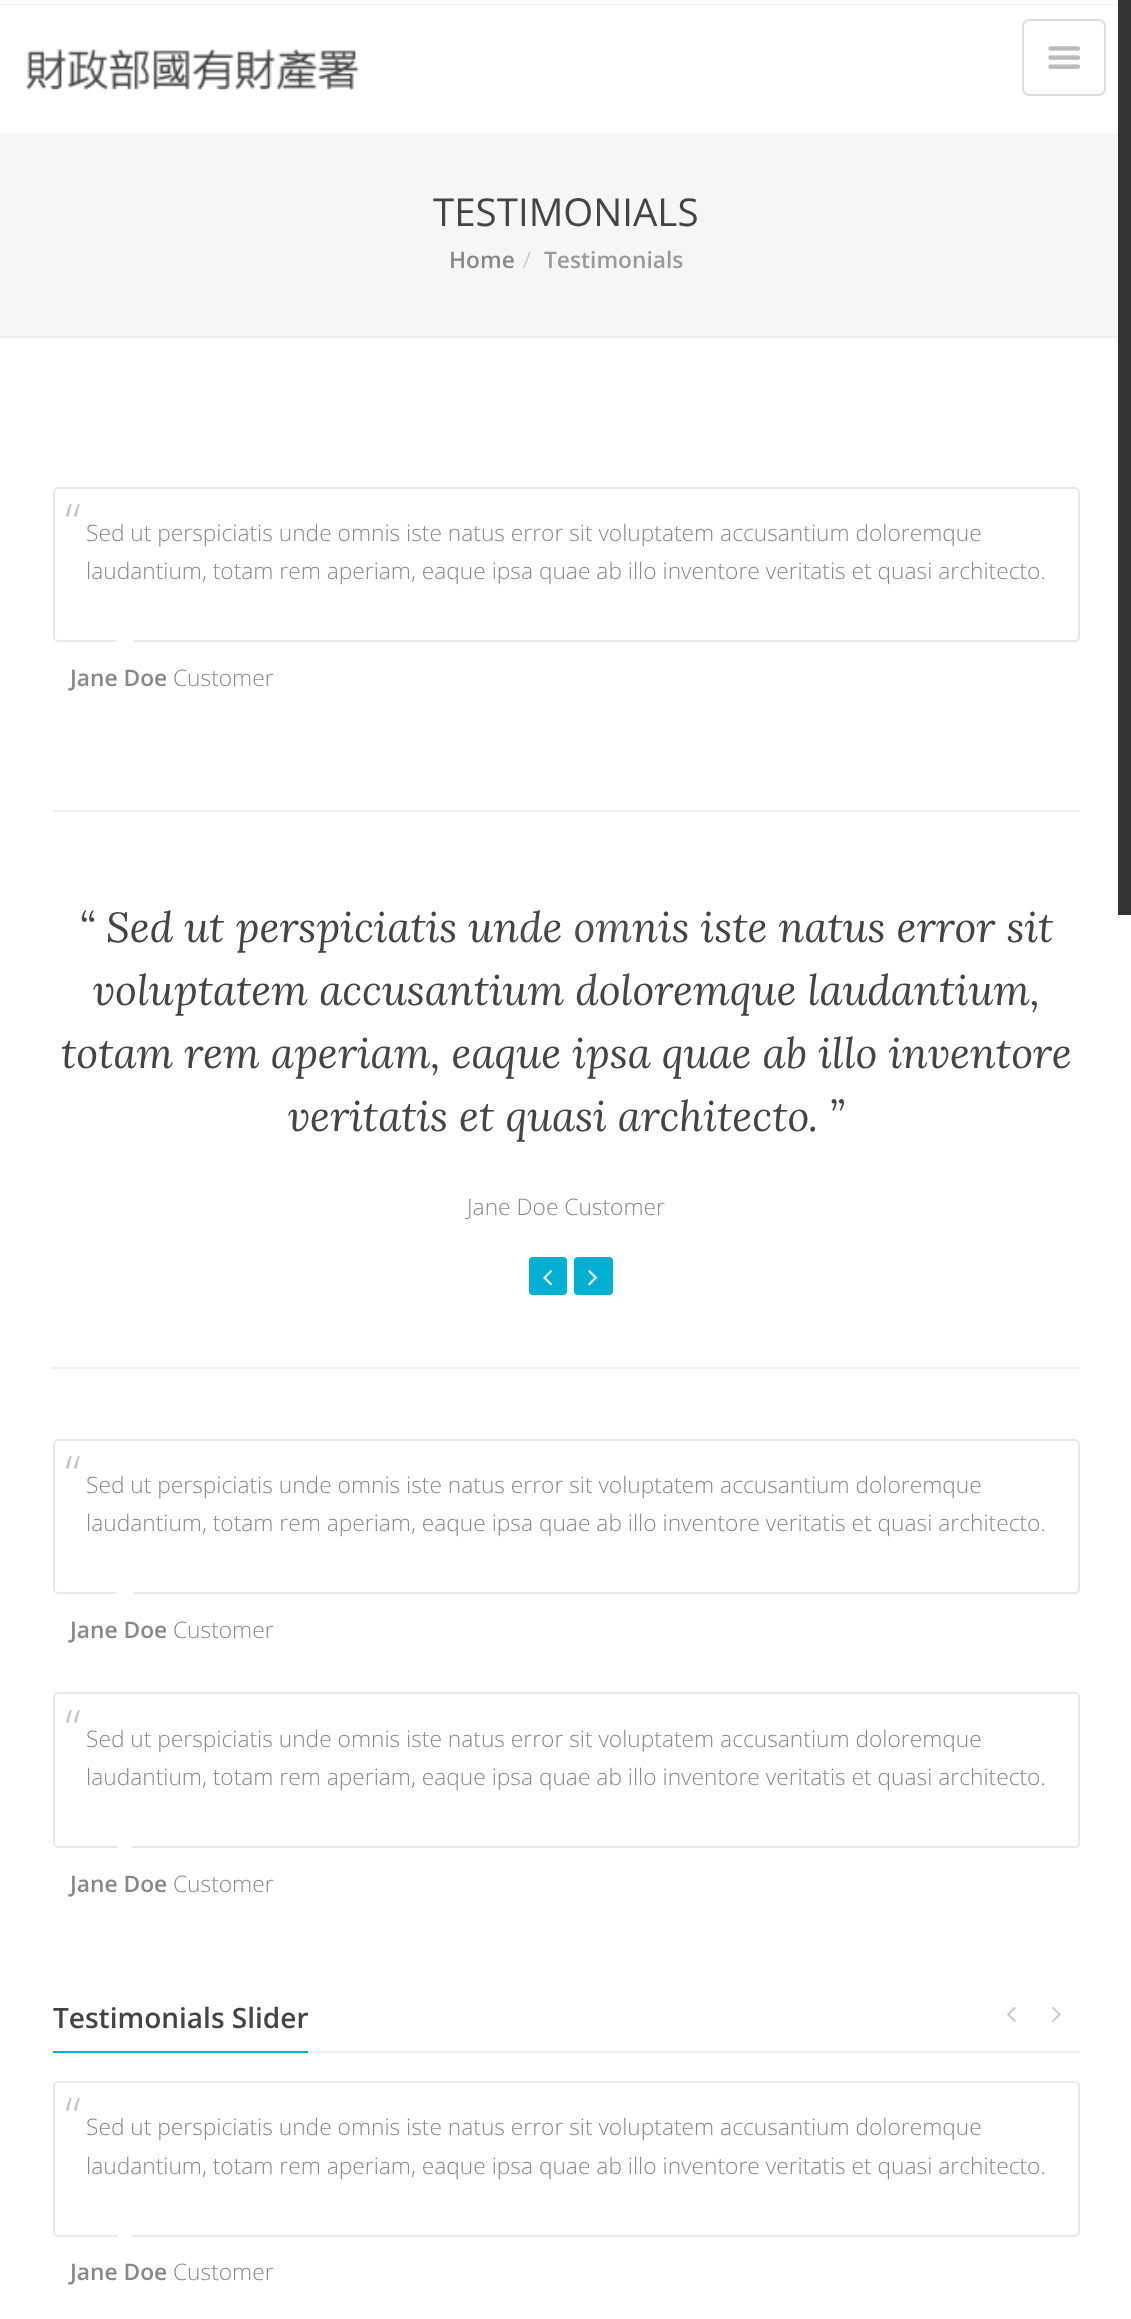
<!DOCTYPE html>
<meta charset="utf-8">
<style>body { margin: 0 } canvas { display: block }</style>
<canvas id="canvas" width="1131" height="2319"></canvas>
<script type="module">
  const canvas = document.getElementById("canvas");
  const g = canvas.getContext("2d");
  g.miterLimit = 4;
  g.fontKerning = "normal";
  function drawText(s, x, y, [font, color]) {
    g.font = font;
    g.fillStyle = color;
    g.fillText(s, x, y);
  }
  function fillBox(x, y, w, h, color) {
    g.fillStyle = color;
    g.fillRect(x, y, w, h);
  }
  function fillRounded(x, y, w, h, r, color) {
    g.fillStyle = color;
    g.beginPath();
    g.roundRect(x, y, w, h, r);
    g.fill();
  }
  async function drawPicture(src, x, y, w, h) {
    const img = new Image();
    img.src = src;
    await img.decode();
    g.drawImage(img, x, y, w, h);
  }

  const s1 = ["38.5px Open Sans", "#444444"];
  const s2 = ["600 22.75px Open Sans", "#888888"];
  const s3 = ["300 22.75px Open Sans", "#BBBBBB"];
  const s4 = ["600 22.75px Open Sans", "#999999"];
  const s5 = ["300 52px Open Sans", "#C4C4C4"];
  const s6 = ["300 22.75px Open Sans", "#888888"];
  const s7 = ["italic 42px Lora", "#444444"];
  const s8 = ["600 28px Open Sans", "#444444"];

  fillBox(0, 0, 1131, 2319, "#FFFFFF");
  fillBox(0, 4, 1118, 1, "#F2F2F2");
  await drawPicture("pic1.png", 26, 49, 333, 41);
  g.beginPath();
  g.roundRect(1023, 20, 82, 75, 6);
  g.strokeStyle = "#DDDDDD";
  g.lineWidth = 2;
  g.stroke();
  await drawPicture("pic2.png", 1048, 46, 32, 23);
  fillBox(0, 133, 1118, 203, "#F6F6F6");
  fillBox(0, 336, 1118, 2, "#EEEEEE");
  drawText("TESTIMONIALS", 433, 226, s1);
  drawText("Home", 449, 268, s2);
  drawText("/", 523, 268, s3);
  drawText("Testimonials", 544, 268, s4);
  g.beginPath();
  g.roundRect(54, 488, 1025, 153, 4);
  g.strokeStyle = "#E8E8E8";
  g.stroke();
  drawText("“", 65, 541, s5);
  drawText("Sed ut perspiciatis unde omnis iste natus error sit voluptatem accusantium doloremque", 86, 541, s6);
  drawText("laudantium, totam rem aperiam, eaque ipsa quae ab illo inventore veritatis et quasi architecto.", 86, 579, s6);
  await drawPicture("pic3.png", 116, 640, 18, 2);
  drawText("Jane Doe", 70, 686, s2);
  drawText("Customer", 173, 686, s6);
  fillBox(53, 810, 1027, 2, "#EEEEEE");
  drawText("“", 79, 942, s7);
  drawText("Sed ut perspiciatis unde omnis iste natus error sit", 106, 942, s7);
  drawText("voluptatem accusantium doloremque laudantium,", 93, 1005, s7);
  drawText("totam rem aperiam, eaque ipsa quae ab illo inventore", 61, 1068, s7);
  drawText("veritatis et quasi architecto.", 288, 1131, s7);
  drawText("”", 829, 1131, s7);
  await drawPicture("pic4.png", 513, 919, 124, 70);
  drawText("Jane Doe Customer", 467, 1215, s6);
  fillRounded(529, 1257, 38, 38, 4, "#00AFD1");
  await drawPicture("pic5.png", 543, 1270, 9, 16);
  fillRounded(574, 1257, 39, 38, 4, "#00AFD1");
  await drawPicture("pic6.png", 588, 1270, 9, 16);
  fillBox(53, 1367, 1027, 2, "#EEEEEE");
  g.beginPath();
  g.roundRect(54, 1440, 1025, 153, 4);
  g.stroke();
  drawText("“", 65, 1493, s5);
  drawText("Sed ut perspiciatis unde omnis iste natus error sit voluptatem accusantium doloremque", 86, 1493, s6);
  drawText("laudantium, totam rem aperiam, eaque ipsa quae ab illo inventore veritatis et quasi architecto.", 86, 1531, s6);
  await drawPicture("pic3.png", 116, 1592, 18, 2);
  drawText("Jane Doe", 70, 1638, s2);
  drawText("Customer", 173, 1638, s6);
  g.beginPath();
  g.roundRect(54, 1693, 1025, 154, 4);
  g.stroke();
  drawText("“", 65, 1747, s5);
  drawText("Sed ut perspiciatis unde omnis iste natus error sit voluptatem accusantium doloremque", 86, 1747, s6);
  drawText("laudantium, totam rem aperiam, eaque ipsa quae ab illo inventore veritatis et quasi architecto.", 86, 1785, s6);
  await drawPicture("pic7.png", 116, 1846, 18, 2);
  drawText("Jane Doe", 70, 1892, s2);
  drawText("Customer", 173, 1892, s6);
  fillBox(308, 2051, 772, 2, "#EEEEEE");
  drawText("Testimonials Slider", 53, 2028, s8);
  fillBox(53, 2051, 255, 2, "#00AFD1");
  await drawPicture("pic8.png", 1007, 2007, 9, 15);
  await drawPicture("pic9.png", 1052, 2007, 9, 15);
  g.beginPath();
  g.roundRect(54, 2082, 1025, 154, 4);
  g.stroke();
  drawText("“", 65, 2135, s5);
  drawText("Sed ut perspiciatis unde omnis iste natus error sit voluptatem accusantium doloremque", 86, 2135, s6);
  drawText("laudantium, totam rem aperiam, eaque ipsa quae ab illo inventore veritatis et quasi architecto.", 86, 2174, s6);
  await drawPicture("pic10.png", 117, 2235, 16, 2);
  drawText("Jane Doe", 70, 2280, s2);
  drawText("Customer", 173, 2280, s6);
  fillBox(1118, 0, 13, 915, "#333333");
</script>
